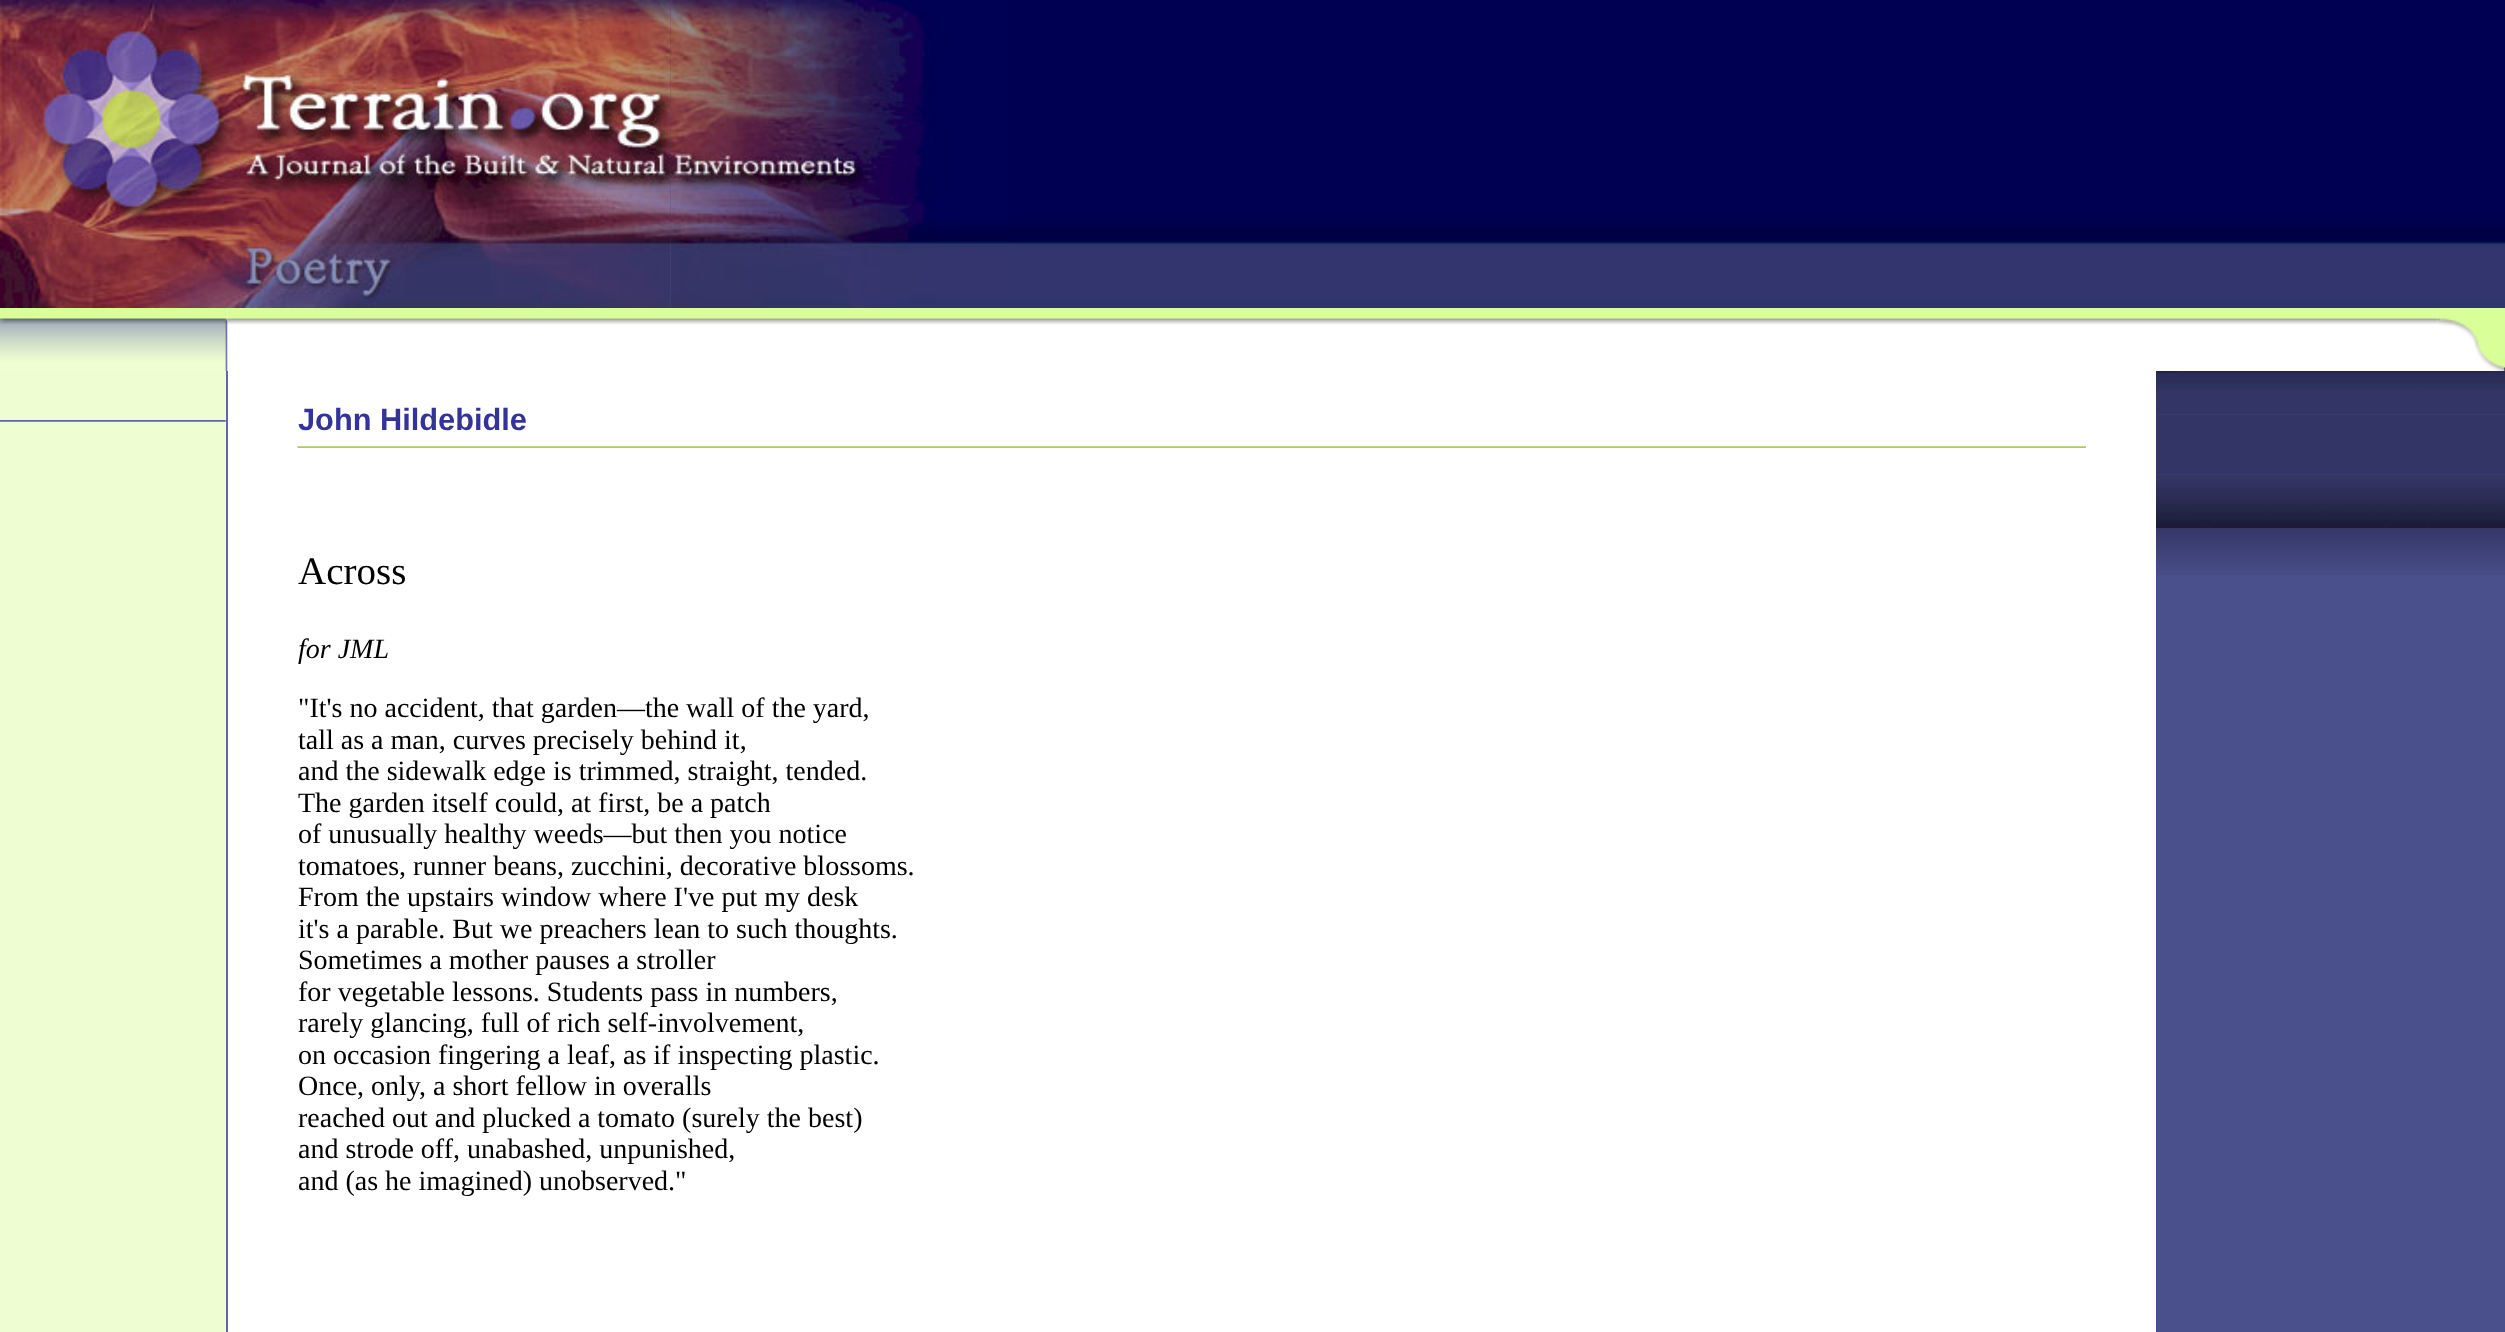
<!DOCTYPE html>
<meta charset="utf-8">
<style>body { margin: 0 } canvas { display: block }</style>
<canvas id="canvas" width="2505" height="1332"></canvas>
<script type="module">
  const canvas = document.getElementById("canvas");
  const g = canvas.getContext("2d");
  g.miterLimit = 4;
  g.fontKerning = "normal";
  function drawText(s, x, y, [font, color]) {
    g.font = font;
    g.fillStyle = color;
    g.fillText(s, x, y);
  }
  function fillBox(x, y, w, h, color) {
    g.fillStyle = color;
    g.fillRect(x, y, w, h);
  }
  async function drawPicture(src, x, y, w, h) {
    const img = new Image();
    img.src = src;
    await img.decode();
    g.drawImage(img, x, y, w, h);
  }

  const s1 = ["bold 30.75px Liberation Sans", "#333399"];
  const s2 = ["39px Liberation Serif", "#000000"];
  const s3 = ["italic 28px Liberation Serif", "#000000"];
  const s4 = ["28px Liberation Serif", "#000000"];

  fillBox(0, 0, 2505, 1332, "#FFFFFF");
  await drawPicture("pic2.png", 670, 0, 1835, 308);
  await drawPicture("pic3.png", 670, 0, 340, 308);
  await drawPicture("pic1.png", 0, 0, 671, 308);
  await drawPicture("pic4.png", 0, 308, 228, 63);
  await drawPicture("pic5.png", 227, 308, 2211, 63);
  await drawPicture("pic6.png", 2437, 308, 68, 63);
  fillBox(0, 371, 226, 961, "#EFFED2");
  await drawPicture("pic7.png", 0, 420, 226, 2);
  fillBox(226, 371, 2, 961, "#5F67A5");
  drawText("John Hildebidle", 298, 430, s1);
  await drawPicture("pic8.png", 297, 446, 1789, 2);
  drawText("Across", 298, 584, s2);
  drawText("for JML", 298, 658, s3);
  drawText("\"It's no accident, that garden—the wall of the yard,", 298, 717, s4);
  drawText("tall as a man, curves precisely behind it,", 298, 749, s4);
  drawText("and the sidewalk edge is trimmed, straight, tended.", 298, 780, s4);
  drawText("The garden itself could, at first, be a patch", 298, 812, s4);
  drawText("of unusually healthy weeds—but then you notice", 298, 843, s4);
  drawText("tomatoes, runner beans, zucchini, decorative blossoms.", 298, 875, s4);
  drawText("From the upstairs window where I've put my desk", 298, 906, s4);
  drawText("it's a parable. But we preachers lean to such thoughts.", 298, 938, s4);
  drawText("Sometimes a mother pauses a stroller", 298, 969, s4);
  drawText("for vegetable lessons. Students pass in numbers,", 298, 1001, s4);
  drawText("rarely glancing, full of rich self-involvement,", 298, 1032, s4);
  drawText("on occasion fingering a leaf, as if inspecting plastic.", 298, 1064, s4);
  drawText("Once, only, a short fellow in overalls", 298, 1095, s4);
  drawText("reached out and plucked a tomato (surely the best)", 298, 1127, s4);
  drawText("and strode off, unabashed, unpunished,", 298, 1158, s4);
  drawText("and (as he imagined) unobserved.\"", 298, 1190, s4);
  fillBox(2156, 414, 349, 918, "#4A508C");
  await drawPicture("pic9.png", 2156, 371, 349, 44);
  fillBox(2156, 415, 349, 59, "#333566");
  await drawPicture("pic10.png", 2156, 474, 349, 55);
  await drawPicture("pic11.png", 2156, 528, 349, 47);
</script>
